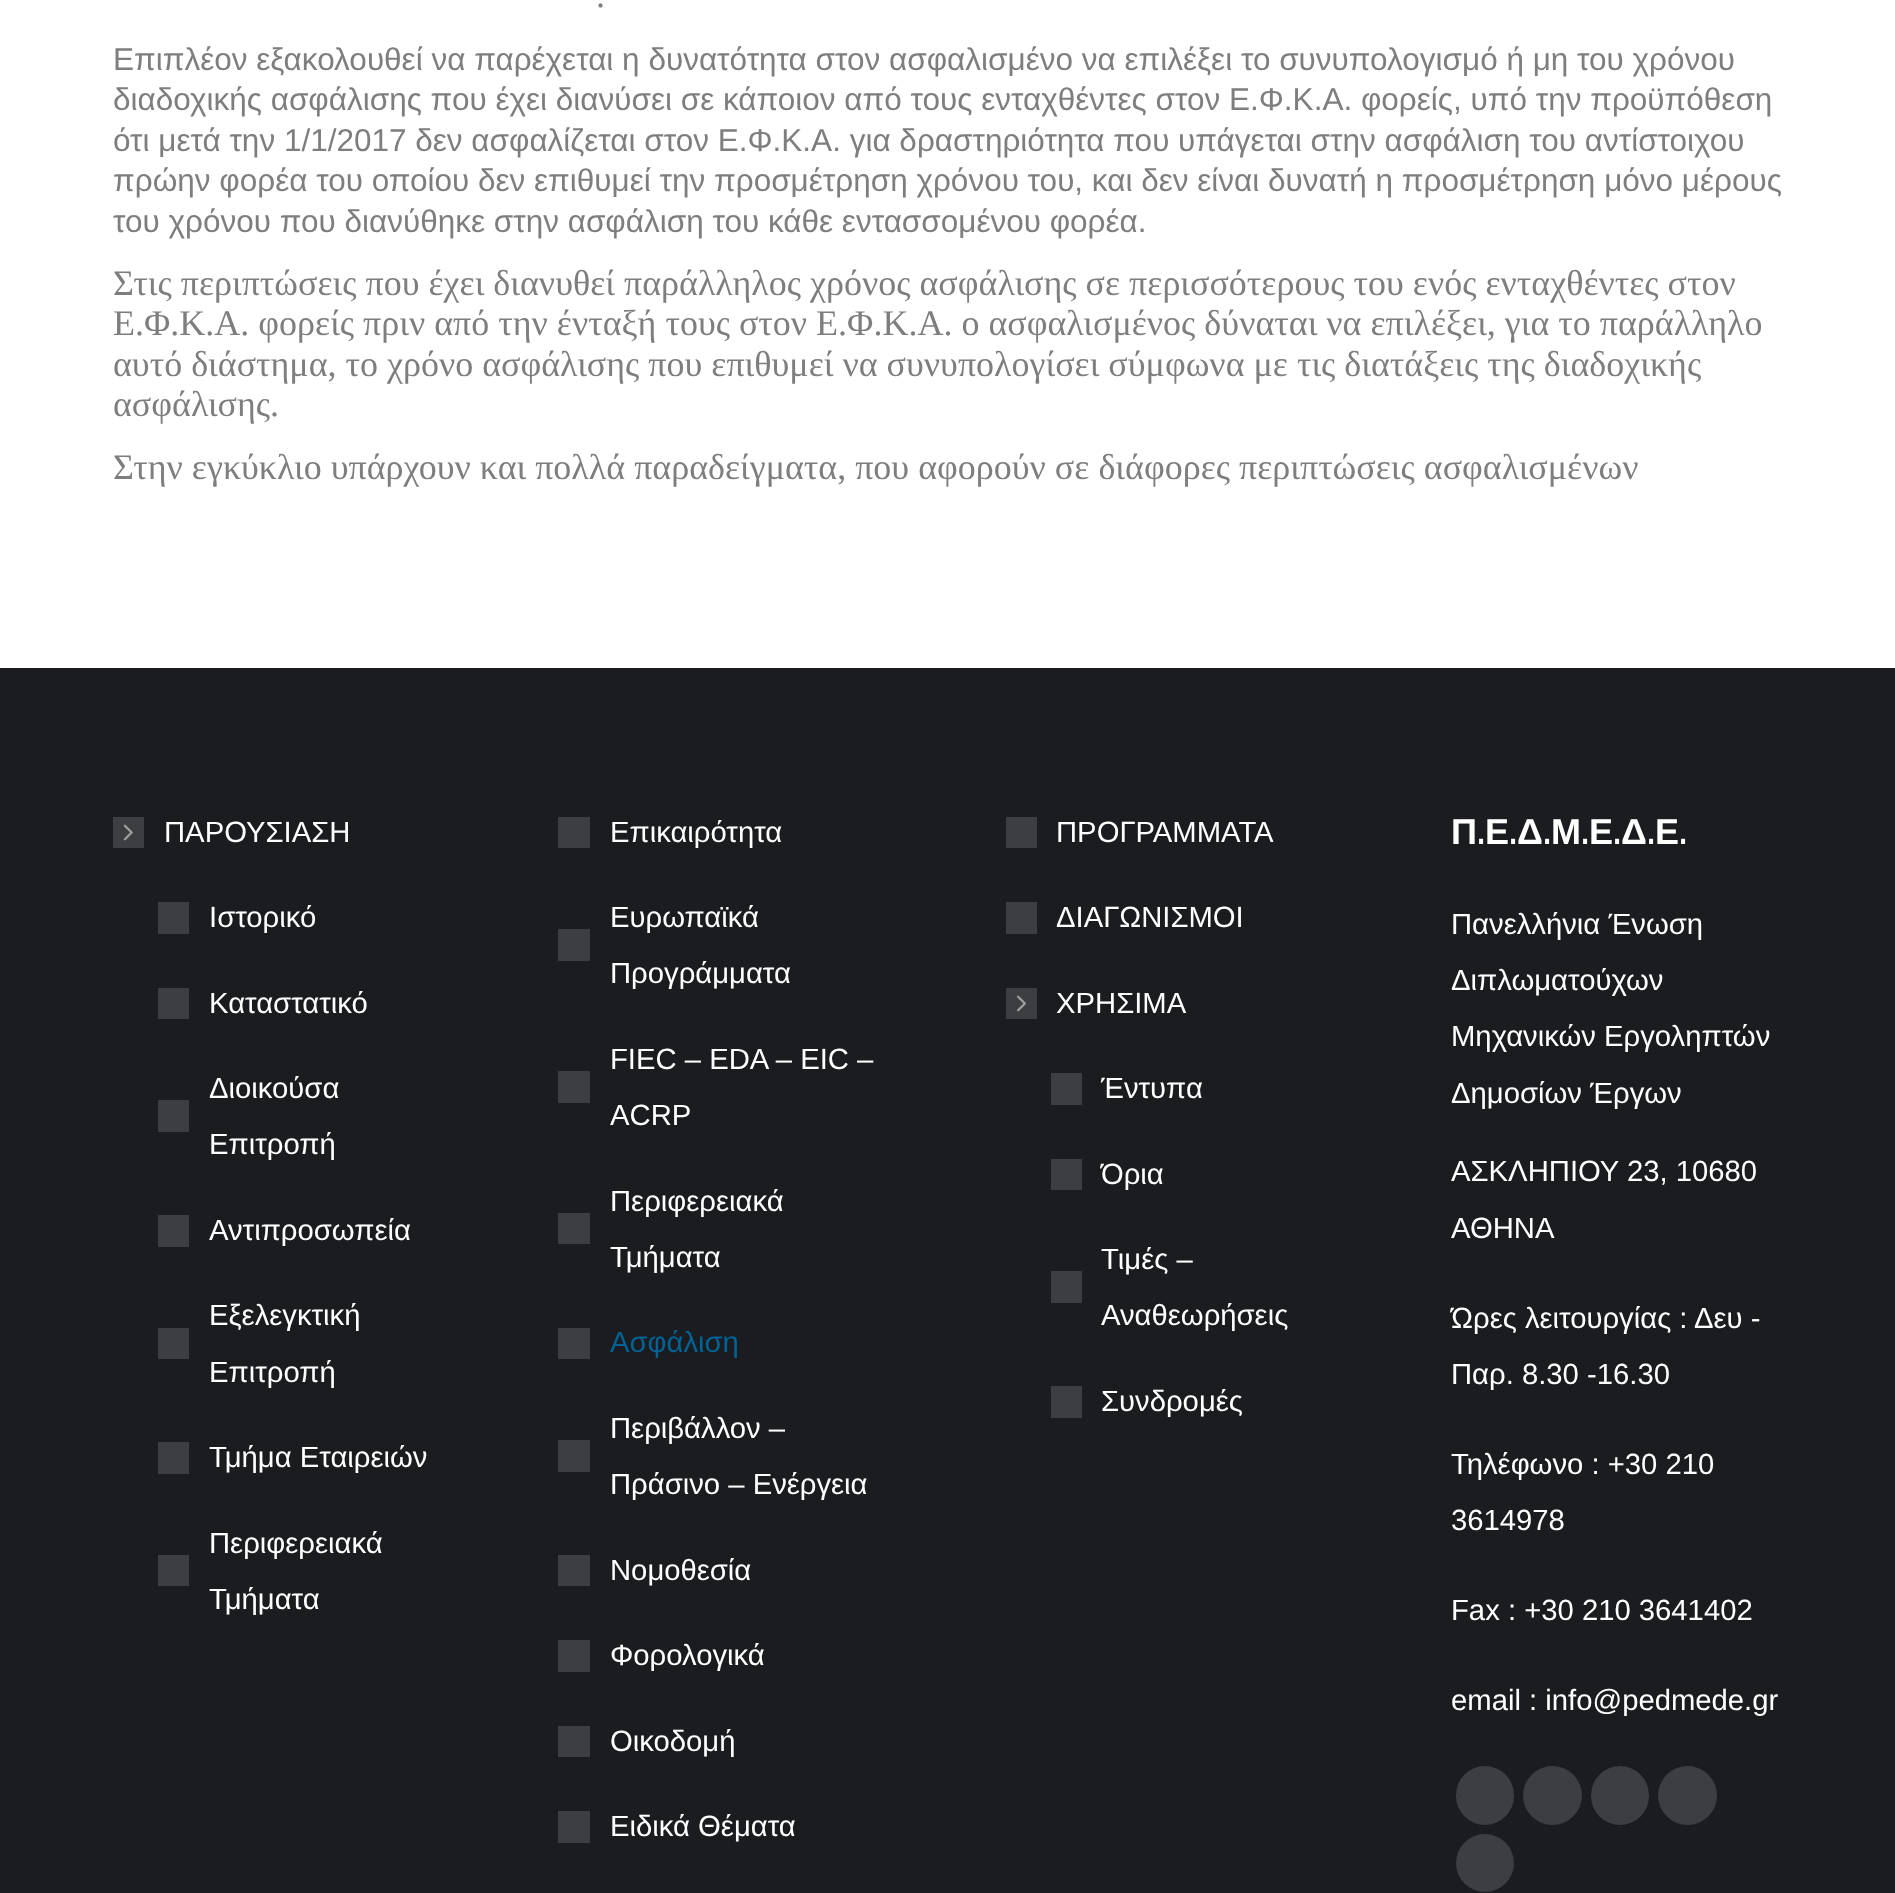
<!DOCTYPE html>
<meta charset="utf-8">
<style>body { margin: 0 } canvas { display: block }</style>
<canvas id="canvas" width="1895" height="1893"></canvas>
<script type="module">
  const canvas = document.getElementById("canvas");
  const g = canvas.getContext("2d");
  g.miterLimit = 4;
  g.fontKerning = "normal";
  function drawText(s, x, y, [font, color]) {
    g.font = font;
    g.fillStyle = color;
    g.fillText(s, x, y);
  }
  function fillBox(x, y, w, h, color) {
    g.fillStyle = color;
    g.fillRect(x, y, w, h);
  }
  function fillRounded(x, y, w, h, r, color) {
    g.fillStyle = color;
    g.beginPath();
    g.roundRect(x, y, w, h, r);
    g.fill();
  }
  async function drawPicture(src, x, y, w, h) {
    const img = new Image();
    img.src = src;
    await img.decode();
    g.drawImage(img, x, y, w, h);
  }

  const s1 = ["36px Liberation Serif", "#7E7E7E"];
  const s2 = ["31.5px Liberation Sans", "#7E7E7E"];
  const s3 = ["29.25px Liberation Sans", "#FFFFFF"];
  const s4 = ["29.25px Liberation Sans", "#006295"];
  const s5 = ["bold 36px Liberation Sans", "#FFFFFF"];
  const s6 = ["bold 36px Raleway", "#FFFFFF"];

  fillBox(0, 0, 1895, 1893, "#FFFFFF");
  drawText(".", 596, 7, s1);
  drawText("Επιπλέον εξακολουθεί να παρέχεται η δυνατότητα στον ασφαλισμένο να επιλέξει το συνυπολογισμό ή μη του χρόνου", 113, 70, s2);
  drawText("διαδοχικής ασφάλισης που έχει διανύσει σε κάποιον από τους ενταχθέντες στον Ε.Φ.Κ.Α. φορείς, υπό την προϋπόθεση", 113, 110, s2);
  drawText("ότι μετά την 1/1/2017 δεν ασφαλίζεται στον Ε.Φ.Κ.Α. για δραστηριότητα που υπάγεται στην ασφάλιση του αντίστοιχου", 113, 151, s2);
  drawText("πρώην φορέα του οποίου δεν επιθυμεί την προσμέτρηση χρόνου του, και δεν είναι δυνατή η προσμέτρηση μόνο μέρους", 113, 191, s2);
  drawText("του χρόνου που διανύθηκε στην ασφάλιση του κάθε εντασσομένου φορέα.", 113, 232, s2);
  drawText("Στις περιπτώσεις που έχει διανυθεί παράλληλος χρόνος ασφάλισης σε περισσότερους του ενός ενταχθέντες στον", 113, 295, s1);
  drawText("Ε.Φ.Κ.Α. φορείς πριν από την ένταξή τους στον Ε.Φ.Κ.Α. ο ασφαλισμένος δύναται να επιλέξει, για το παράλληλο", 113, 335, s1);
  drawText("αυτό διάστημα, το χρόνο ασφάλισης που επιθυμεί να συνυπολογίσει σύμφωνα με τις διατάξεις της διαδοχικής", 113, 376, s1);
  drawText("ασφάλισης.", 113, 416, s1);
  drawText("Στην εγκύκλιο υπάρχουν και πολλά παραδείγματα, που αφορούν σε διάφορες περιπτώσεις ασφαλισμένων", 113, 479, s1);
  fillBox(0, 668, 1895, 1225, "#1A1C20");
  fillBox(113, 817, 31, 31, "#3C3E41");
  drawText("ΠΑΡΟΥΣΙΑΣΗ", 164, 842, s3);
  await drawPicture("pic1.png", 123, 824, 10, 17);
  fillBox(158, 902, 31, 32, "#3C3E41");
  drawText("Ιστορικό", 209, 927, s3);
  fillBox(158, 988, 31, 31, "#3C3E41");
  drawText("Καταστατικό", 209, 1013, s3);
  drawText("Διοικούσα", 209, 1098, s3);
  fillBox(158, 1100, 31, 32, "#3C3E41");
  drawText("Επιτροπή", 209, 1154, s3);
  fillBox(158, 1215, 31, 32, "#3C3E41");
  drawText("Αντιπροσωπεία", 209, 1240, s3);
  drawText("Εξελεγκτική", 209, 1325, s3);
  fillBox(158, 1328, 31, 31, "#3C3E41");
  drawText("Επιτροπή", 209, 1382, s3);
  fillBox(158, 1442, 31, 32, "#3C3E41");
  drawText("Τμήμα Εταιρειών", 209, 1467, s3);
  drawText("Περιφερειακά", 209, 1553, s3);
  fillBox(158, 1555, 31, 31, "#3C3E41");
  drawText("Τμήματα", 209, 1609, s3);
  fillBox(558, 817, 32, 31, "#3C3E41");
  drawText("Επικαιρότητα", 610, 842, s3);
  drawText("Ευρωπαϊκά", 610, 927, s3);
  fillBox(558, 929, 32, 32, "#3C3E41");
  drawText("Προγράμματα", 610, 983, s3);
  drawText("FIEC – EDA – EIC –", 610, 1069, s3);
  fillBox(558, 1071, 32, 32, "#3C3E41");
  drawText("ACRP", 610, 1125, s3);
  drawText("Περιφερειακά", 610, 1211, s3);
  fillBox(558, 1213, 32, 31, "#3C3E41");
  drawText("Τμήματα", 610, 1267, s3);
  fillBox(558, 1328, 32, 31, "#3C3E41");
  drawText("Ασφάλιση", 610, 1352, s4);
  drawText("Περιβάλλον –", 610, 1438, s3);
  fillBox(558, 1440, 32, 32, "#3C3E41");
  drawText("Πράσινο – Ενέργεια", 610, 1494, s3);
  fillBox(558, 1555, 32, 31, "#3C3E41");
  drawText("Νομοθεσία", 610, 1580, s3);
  fillBox(558, 1640, 32, 32, "#3C3E41");
  drawText("Φορολογικά", 610, 1665, s3);
  fillBox(558, 1726, 32, 31, "#3C3E41");
  drawText("Οικοδομή", 610, 1751, s3);
  fillBox(558, 1811, 32, 32, "#3C3E41");
  drawText("Ειδικά Θέματα", 610, 1836, s3);
  fillBox(1006, 817, 31, 31, "#3C3E41");
  drawText("ΠΡΟΓΡΑΜΜΑΤΑ", 1056, 842, s3);
  fillBox(1006, 902, 31, 32, "#3C3E41");
  drawText("ΔΙΑΓΩΝΙΣΜΟΙ", 1056, 927, s3);
  fillBox(1006, 988, 31, 31, "#3C3E41");
  drawText("ΧΡΗΣΙΜΑ", 1056, 1013, s3);
  await drawPicture("pic2.png", 1017, 995, 9, 17);
  fillBox(1051, 1073, 31, 32, "#3C3E41");
  drawText("Έντυπα", 1101, 1098, s3);
  fillBox(1051, 1159, 31, 31, "#3C3E41");
  drawText("Όρια", 1101, 1184, s3);
  drawText("Τιμές –", 1101, 1269, s3);
  fillBox(1051, 1271, 31, 32, "#3C3E41");
  drawText("Αναθεωρήσεις", 1101, 1325, s3);
  fillBox(1051, 1386, 31, 32, "#3C3E41");
  drawText("Συνδρομές", 1101, 1411, s3);
  drawText("Π", 1451, 844, s5);
  drawText(".", 1477, 844, s6);
  drawText("Ε", 1485, 844, s5);
  drawText(".", 1509, 844, s6);
  drawText("Δ", 1517, 844, s5);
  drawText(".", 1543, 844, s6);
  drawText("Μ", 1551, 844, s5);
  drawText(".", 1581, 844, s6);
  drawText("Ε", 1589, 844, s5);
  drawText(".", 1613, 844, s6);
  drawText("Δ", 1621, 844, s5);
  drawText(".", 1647, 844, s6);
  drawText("Ε", 1655, 844, s5);
  drawText(".", 1679, 844, s6);
  drawText("Πανελλήνια Ένωση", 1451, 934, s3);
  drawText("Διπλωματούχων", 1451, 990, s3);
  drawText("Μηχανικών Εργοληπτών", 1451, 1046, s3);
  drawText("Δημοσίων Έργων", 1451, 1103, s3);
  drawText("ΑΣΚΛΗΠΙΟΥ 23, 10680", 1451, 1181, s3);
  drawText("ΑΘΗΝΑ", 1451, 1238, s3);
  drawText("Ώρες λειτουργίας : Δευ -", 1451, 1328, s3);
  drawText("Παρ. 8.30 -16.30", 1451, 1384, s3);
  drawText("Τηλέφωνο : +30 210", 1451, 1474, s3);
  drawText("3614978", 1451, 1530, s3);
  drawText("Fax : +30 210 3641402", 1451, 1620, s3);
  drawText("email : info@pedmede.gr", 1451, 1710, s3);
  fillRounded(1456, 1766, 58, 59, 29, "#3C3E41");
  g.beginPath();
  g.arc(1552.5, 1795.5, 29.5, 0, Math.PI * 2);
  g.fill();
  fillRounded(1591, 1766, 58, 59, 29, "#3C3E41");
  g.beginPath();
  g.arc(1687.5, 1795.5, 29.5, 0, Math.PI * 2);
  g.fill();
  g.beginPath();
  g.arc(1485, 1863, 29, 0, Math.PI * 2);
  g.fill();
</script>
